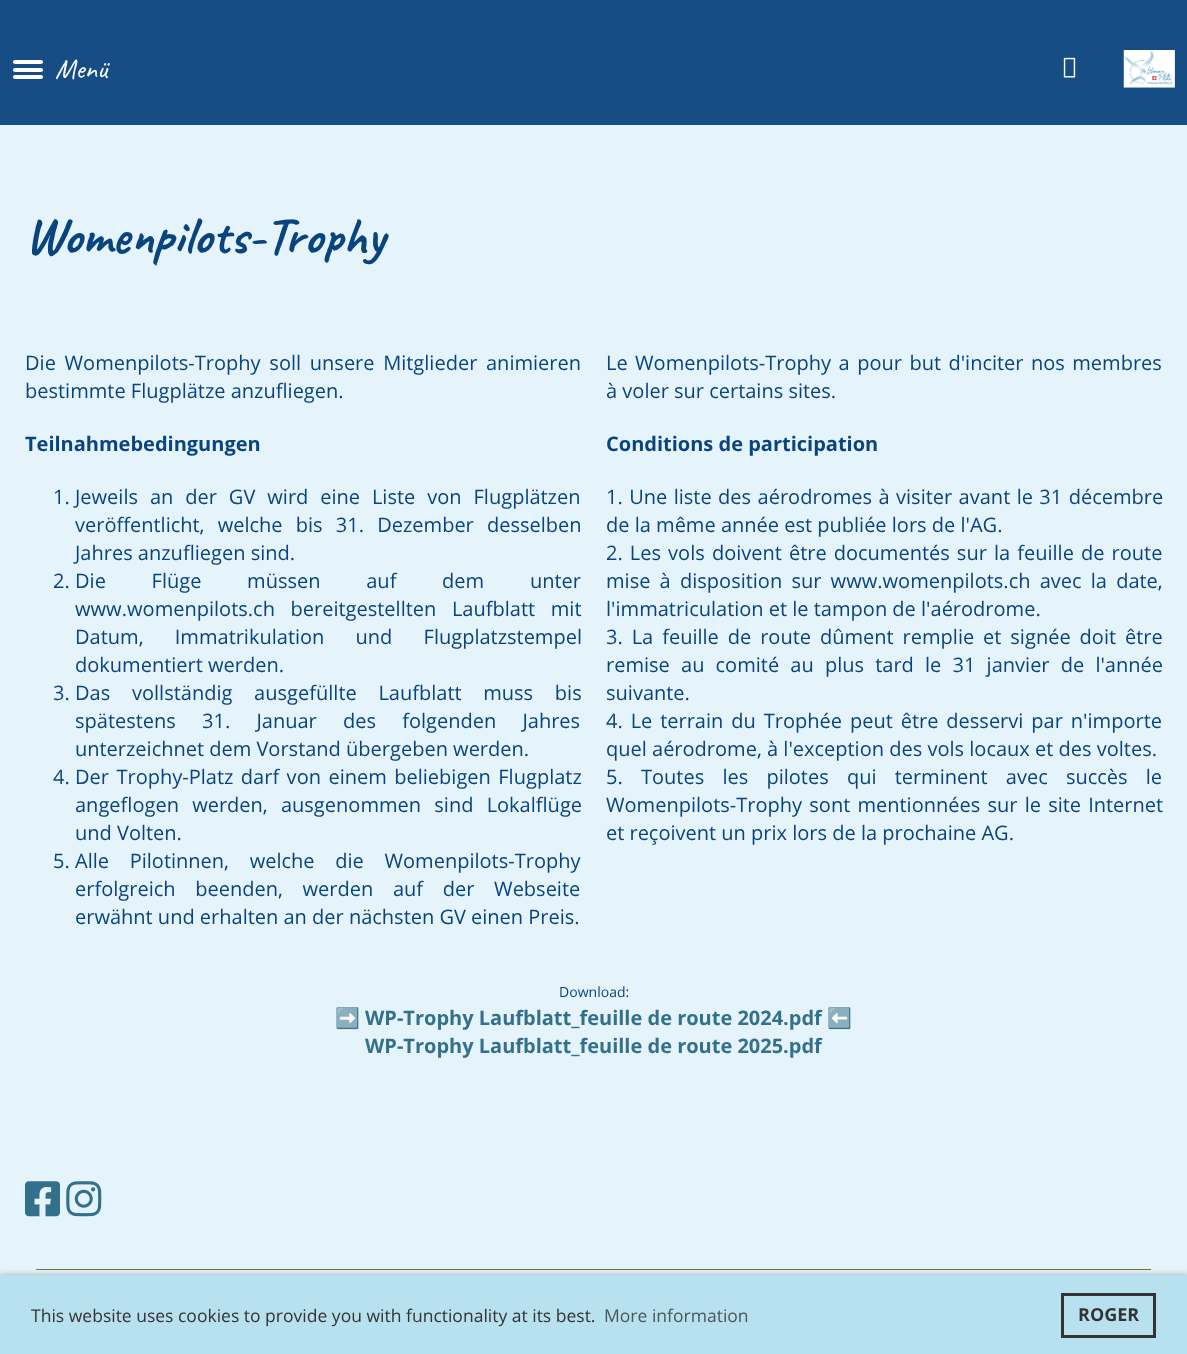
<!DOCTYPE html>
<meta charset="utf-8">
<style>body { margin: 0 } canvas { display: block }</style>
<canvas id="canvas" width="1187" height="1354"></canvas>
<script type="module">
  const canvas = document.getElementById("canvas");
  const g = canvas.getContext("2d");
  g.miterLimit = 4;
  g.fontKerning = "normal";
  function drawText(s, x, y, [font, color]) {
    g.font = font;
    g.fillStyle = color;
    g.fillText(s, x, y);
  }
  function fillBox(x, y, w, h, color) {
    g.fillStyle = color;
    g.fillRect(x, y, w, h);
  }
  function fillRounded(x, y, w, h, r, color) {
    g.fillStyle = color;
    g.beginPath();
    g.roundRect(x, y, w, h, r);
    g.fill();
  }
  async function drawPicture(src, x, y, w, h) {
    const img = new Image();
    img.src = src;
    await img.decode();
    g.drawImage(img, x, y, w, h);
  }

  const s1 = ["28px Caveat", "#FFFFFF"];
  const s2 = ["bold 52.5px Caveat", "#0A447E"];
  const s3 = ["20px Open Sans", "#0A447E"];
  const s4 = ["bold 20px Open Sans", "#0A447E"];
  const s5 = ["14px Open Sans", "#0A447E"];
  const s6 = ["bold 20px Noto Color Emoji", "#0A447E"];
  const s7 = ["bold 20px Open Sans", "#33708C"];
  const s8 = ["17.5px Open Sans", "#333333"];
  const s9 = ["17.5px Open Sans", "#4D5659"];
  const s10 = ["bold 18px Open Sans", "#333333"];

  fillBox(0, 0, 1187, 1354, "#154D84");
  fillRounded(13, 60, 30, 4, 2, "#FFFFFF");
  fillRounded(13, 68, 30, 4, 2, "#FFFFFF");
  fillRounded(13, 75, 30, 4, 2, "#FFFFFF");
  drawText("Menü", 55, 78, s1);
  await drawPicture("pic1.png", 1063, 57, 13, 21);
  await drawPicture("pic2.png", 1123, 50, 52, 38);
  fillBox(0, 125, 1187, 1150, "#E5F3FA");
  drawText("Womenpilots-Trophy", 25, 253, s2);
  g.wordSpacing = "3.5px";
  drawText("Die Womenpilots-Trophy soll unsere Mitglieder animieren", 25, 370, s3);
  g.wordSpacing = "0px";
  drawText("bestimmte Flugplätze anzufliegen.", 25, 398, s3);
  drawText("Teilnahmebedingungen", 25, 451, s4);
  drawText("1.", 53, 504, s3);
  g.wordSpacing = "6.75px";
  drawText("Jeweils an der GV wird eine Liste von Flugplätzen", 75, 504, s3);
  g.wordSpacing = "8px";
  drawText("veröffentlicht, welche bis 31. Dezember desselben", 75, 532, s3);
  g.wordSpacing = "0px";
  drawText("Jahres anzufliegen sind.", 75, 560, s3);
  drawText("2.", 53, 588, s3);
  g.wordSpacing = "40.5px";
  drawText("Die Flüge müssen auf dem unter", 75, 588, s3);
  g.wordSpacing = "10.5px";
  drawText("www.womenpilots.ch bereitgestellten Laufblatt mit", 75, 616, s3);
  g.wordSpacing = "26px";
  drawText("Datum, Immatrikulation und Flugplatzstempel", 75, 644, s3);
  g.wordSpacing = "0px";
  drawText("dokumentiert werden.", 75, 672, s3);
  drawText("3.", 53, 700, s3);
  g.wordSpacing = "16.5px";
  drawText("Das vollständig ausgefüllte Laufblatt muss bis", 75, 700, s3);
  g.wordSpacing = "21px";
  drawText("spätestens 31. Januar des folgenden Jahres", 75, 728, s3);
  g.wordSpacing = "0px";
  drawText("unterzeichnet dem Vorstand übergeben werden.", 75, 756, s3);
  drawText("4.", 53, 784, s3);
  g.wordSpacing = "2.25px";
  drawText("Der Trophy-Platz darf von einem beliebigen Flugplatz", 75, 784, s3);
  g.wordSpacing = "8px";
  drawText("angeflogen werden, ausgenommen sind Lokalflüge", 75, 812, s3);
  g.wordSpacing = "0px";
  drawText("und Volten.", 75, 840, s3);
  drawText("5.", 53, 868, s3);
  g.wordSpacing = "15.5px";
  drawText("Alle Pilotinnen, welche die Womenpilots-Trophy", 75, 868, s3);
  g.wordSpacing = "14.5px";
  drawText("erfolgreich beenden, werden auf der Webseite", 75, 896, s3);
  g.wordSpacing = "0px";
  drawText("erwähnt und erhalten an der nächsten GV einen Preis.", 75, 924, s3);
  g.wordSpacing = "2.25px";
  drawText("Le Womenpilots-Trophy a pour but d'inciter nos membres", 606, 370, s3);
  g.wordSpacing = "0px";
  drawText("à voler sur certains sites.", 606, 398, s3);
  drawText("Conditions de participation", 606, 451, s4);
  g.wordSpacing = "1.25px";
  drawText("1. Une liste des aérodromes à visiter avant le 31 décembre", 606, 504, s3);
  g.wordSpacing = "0px";
  drawText("de la même année est publiée lors de l'AG.", 606, 532, s3);
  g.wordSpacing = "1.9px";
  drawText("2. Les vols doivent être documentés sur la feuille de route", 606, 560, s3);
  g.wordSpacing = "4px";
  drawText("mise à disposition sur www.womenpilots.ch avec la date,", 606, 588, s3);
  g.wordSpacing = "0px";
  drawText("l'immatriculation et le tampon de l'aérodrome.", 606, 616, s3);
  g.wordSpacing = "3.75px";
  drawText("3. La feuille de route dûment remplie et signée doit être", 606, 644, s3);
  g.wordSpacing = "6px";
  drawText("remise au comité au plus tard le 31 janvier de l'année", 606, 672, s3);
  g.wordSpacing = "0px";
  drawText("suivante.", 606, 700, s3);
  g.wordSpacing = "2.75px";
  drawText("4. Le terrain du Trophée peut être desservi par n'importe", 606, 728, s3);
  g.wordSpacing = "0px";
  drawText("quel aérodrome, à l'exception des vols locaux et des voltes.", 606, 756, s3);
  g.wordSpacing = "13px";
  drawText("5. Toutes les pilotes qui terminent avec succès le", 606, 784, s3);
  g.wordSpacing = "2px";
  drawText("Womenpilots-Trophy sont mentionnées sur le site Internet", 606, 812, s3);
  g.wordSpacing = "0px";
  drawText("et reçoivent un prix lors de la prochaine AG.", 606, 840, s3);
  drawText("Download:", 559, 997, s5);
  drawText("➡️", 335, 1025, s6);
  drawText("WP-Trophy Laufblatt_feuille de route 2024.pdf", 365, 1025, s7);
  drawText("⬅️", 827, 1025, s6);
  drawText("WP-Trophy Laufblatt_feuille de route 2025.pdf", 365, 1053, s7);
  await drawPicture("pic3.png", 25, 1181, 35, 36);
  await drawPicture("pic4.png", 66, 1181, 36, 36);
  fillBox(36, 1269, 1115, 1, "#707A35");
  g.fillStyle = "rgba(0, 0, 0, 0.3)";
  g.filter = "blur(3px)";
  g.beginPath();
  g.rect(0, 1275, 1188, 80);
  g.fill();
  g.filter = "none";
  fillBox(0, 1275, 1187, 79, "#B7E1EF");
  drawText("This website uses cookies to provide you with functionality at its best.", 31, 1322, s8);
  drawText("More information", 604, 1322, s9);
  g.strokeStyle = "#333333";
  g.lineWidth = 3;
  g.strokeRect(1062.5, 1294.5, 92, 42);
  drawText("ROGER", 1078, 1321, s10);
</script>
